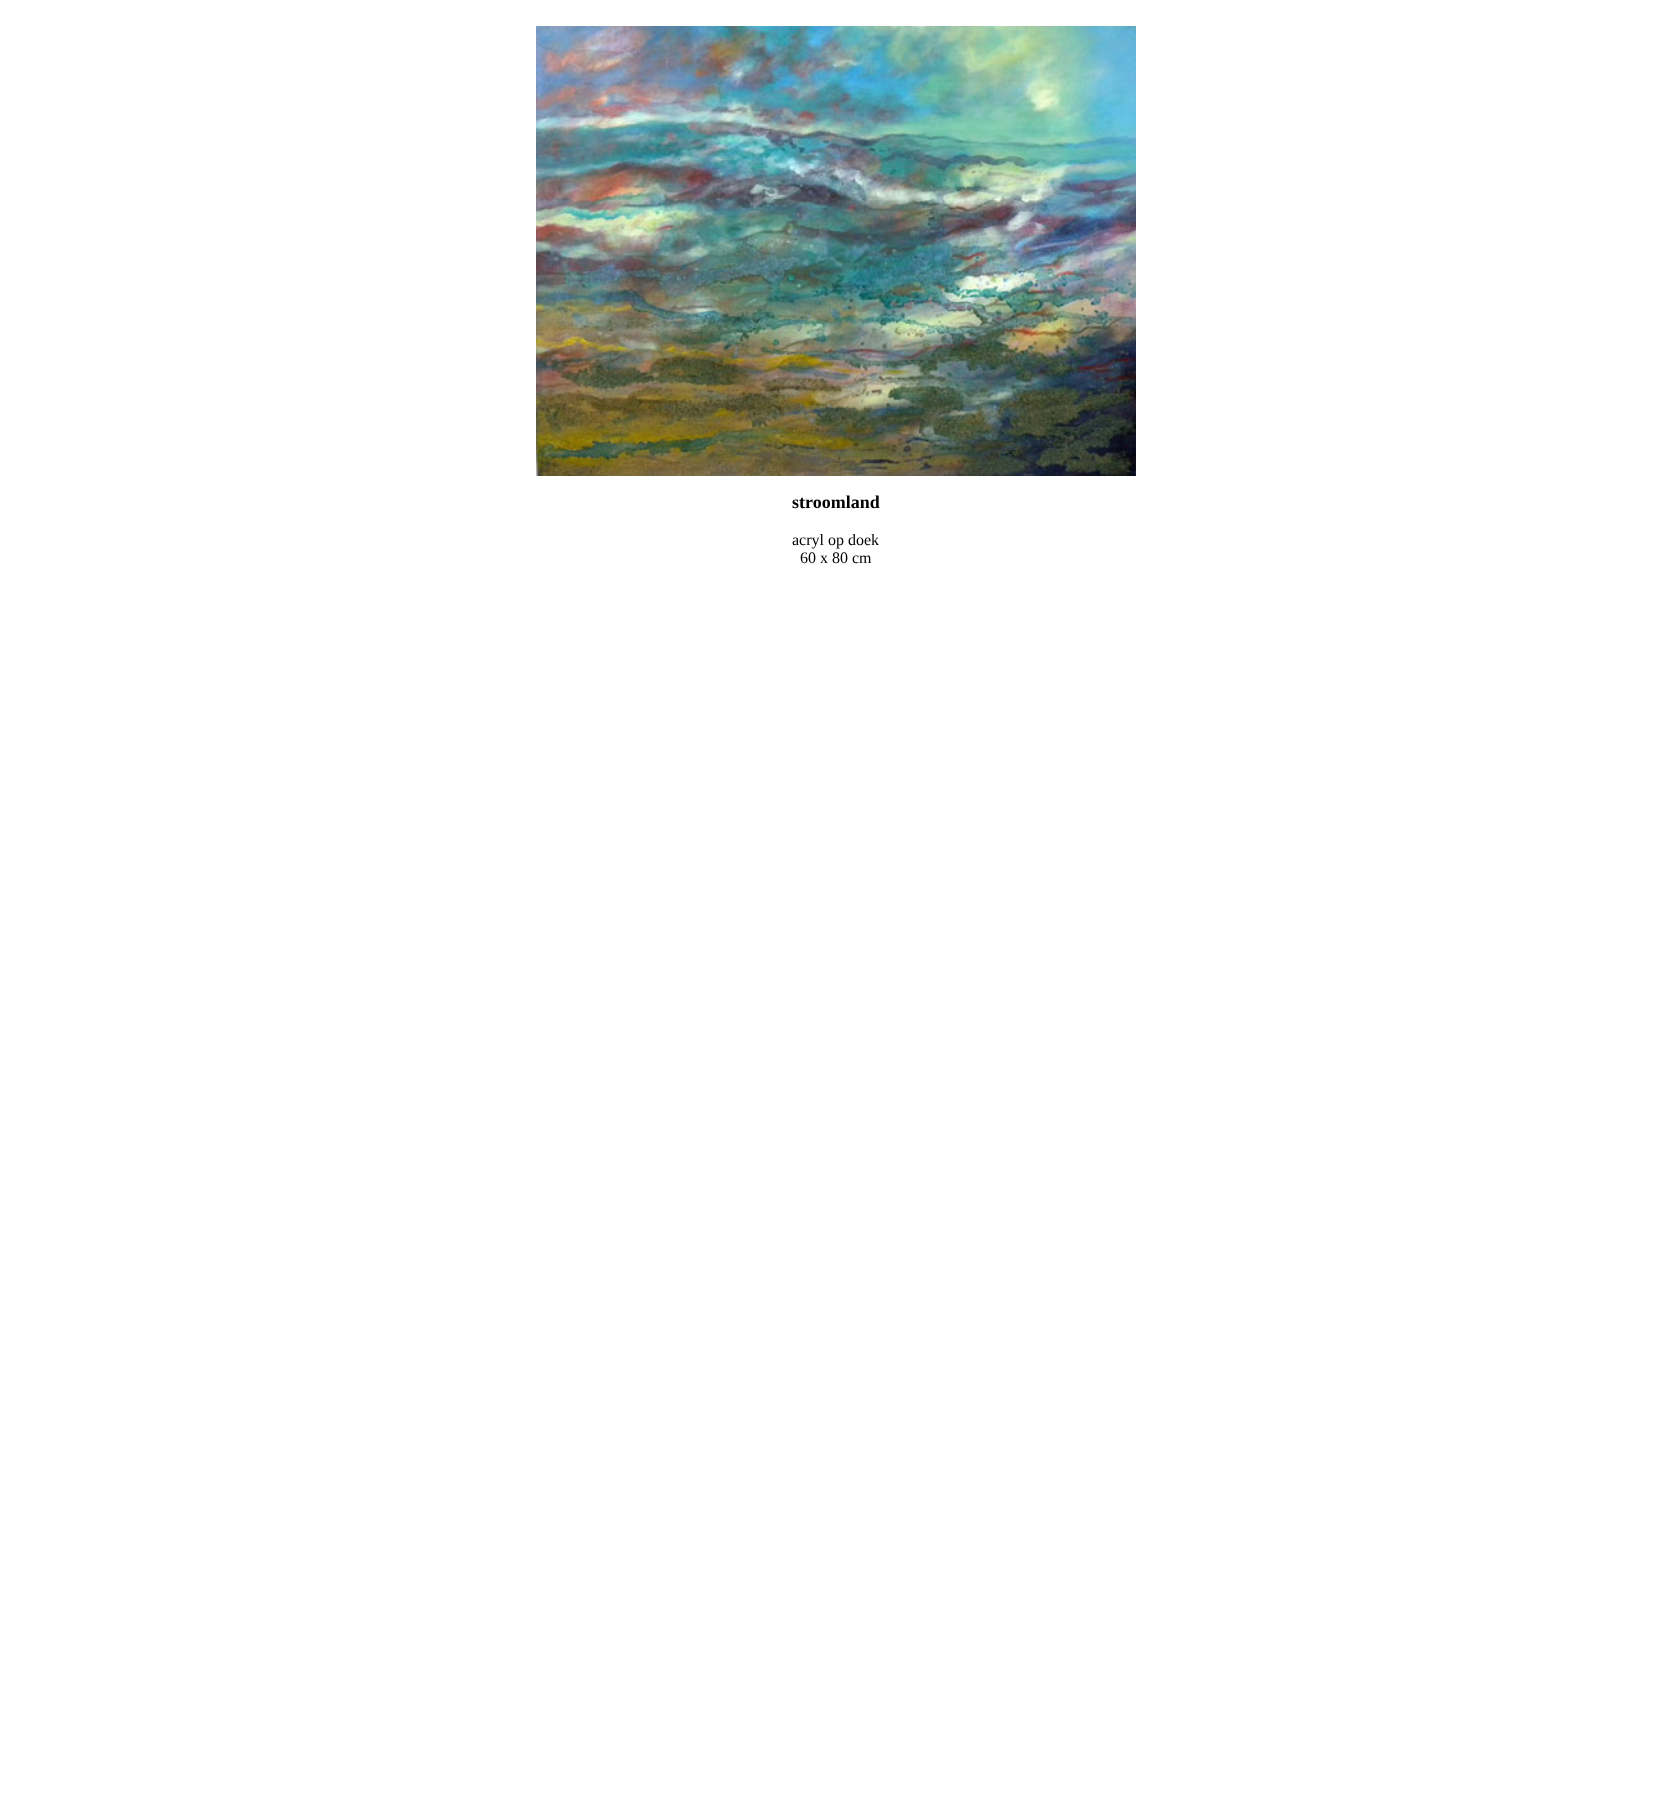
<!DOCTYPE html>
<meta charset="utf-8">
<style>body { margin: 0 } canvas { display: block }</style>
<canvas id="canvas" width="1671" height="1793"></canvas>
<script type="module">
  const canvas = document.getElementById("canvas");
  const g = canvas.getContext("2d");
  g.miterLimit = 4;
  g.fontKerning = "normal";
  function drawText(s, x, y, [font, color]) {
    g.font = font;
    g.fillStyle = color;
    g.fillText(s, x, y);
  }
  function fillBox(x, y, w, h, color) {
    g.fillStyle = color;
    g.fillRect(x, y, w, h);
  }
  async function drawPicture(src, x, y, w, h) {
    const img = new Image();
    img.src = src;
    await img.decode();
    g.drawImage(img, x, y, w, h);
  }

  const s1 = ["bold 18px Liberation Serif", "#000000"];
  const s2 = ["16px Liberation Serif", "#000000"];

  fillBox(0, 0, 1671, 1793, "#FFFFFF");
  await drawPicture("pic1.png", 536, 26, 600, 450);
  drawText("stroomland", 792, 508, s1);
  drawText("acryl op doek", 792, 545, s2);
  drawText("60 x 80 cm", 800, 563, s2);
</script>
